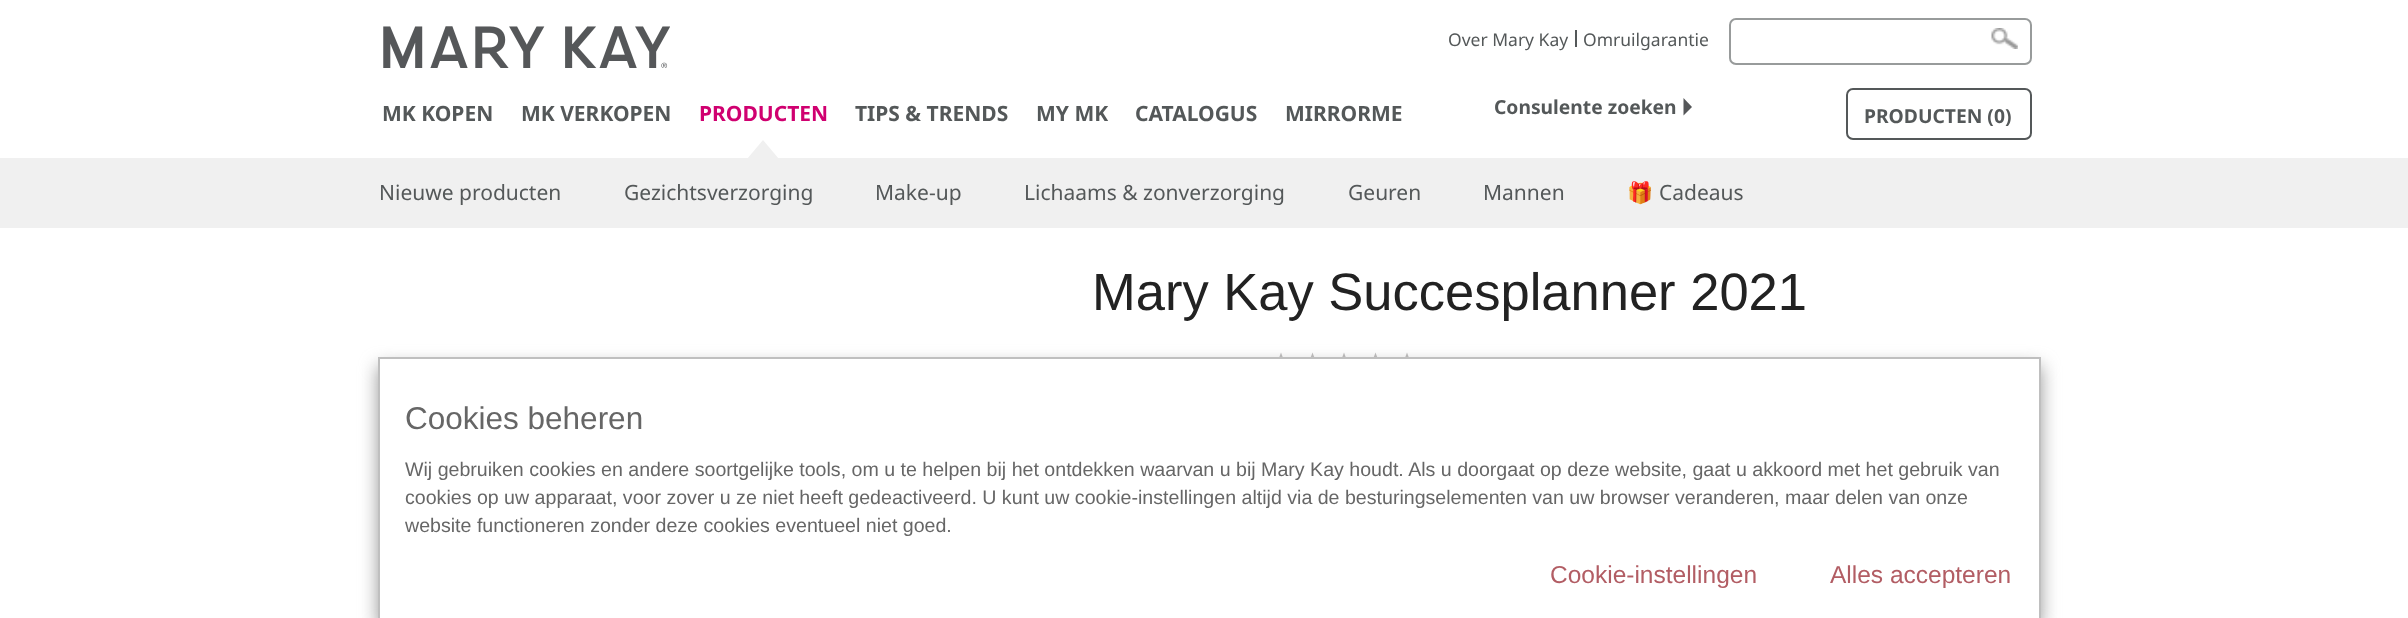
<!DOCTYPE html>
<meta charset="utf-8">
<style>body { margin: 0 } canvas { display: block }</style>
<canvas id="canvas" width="2408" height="618"></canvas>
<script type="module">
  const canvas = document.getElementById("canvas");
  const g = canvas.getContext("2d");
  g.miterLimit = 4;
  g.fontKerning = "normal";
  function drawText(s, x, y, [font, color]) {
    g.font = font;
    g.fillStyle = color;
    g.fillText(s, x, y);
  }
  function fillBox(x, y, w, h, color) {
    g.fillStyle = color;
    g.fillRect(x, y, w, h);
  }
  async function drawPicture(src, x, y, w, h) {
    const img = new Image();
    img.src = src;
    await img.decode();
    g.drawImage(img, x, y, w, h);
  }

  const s1 = ["17.5px Noto Sans", "#545859"];
  const s2 = ["bold 21px Noto Sans", "#545859"];
  const s3 = ["bold 21px Noto Sans", "#D00070"];
  const s4 = ["bold 19.25px Noto Sans", "#545859"];
  const s5 = ["21px Noto Sans", "#545859"];
  const s6 = ["21px Noto Color Emoji", "#545859"];
  const s7 = ["52.5px Liberation Sans", "#222222"];
  const s8 = ["31.5px Liberation Sans", "#666666"];
  const s9 = ["19.6px Liberation Sans", "#666666"];
  const s10 = ["24.5px Liberation Sans", "#B25D64"];

  fillBox(0, 0, 2408, 618, "#FFFFFF");
  drawText("Over Mary Kay", 1448, 46, s1);
  fillBox(1575, 30, 2, 17, "#545859");
  drawText("Omruilgarantie", 1583, 46, s1);
  await drawPicture("pic1.png", 1991, 28, 27, 21);
  g.fillStyle = "rgba(255, 255, 255, 0.6)";
  g.beginPath();
  g.roundRect(1730, 19, 301, 45, 6);
  g.fill();
  g.strokeStyle = "#989B9B";
  g.lineWidth = 2;
  g.stroke();
  await drawPicture("pic2.png", 383, 26, 287, 42);
  drawText("MK KOPEN", 382, 121, s2);
  drawText("MK VERKOPEN", 521, 121, s2);
  drawText("PRODUCTEN", 699, 121, s3);
  fillBox(0, 158, 2408, 70, "#F0F0F0");
  g.beginPath();
  g.moveTo(779, 159);
  g.lineTo(747, 159);
  g.lineTo(763, 140);
  g.closePath();
  g.fill();
  drawText("TIPS & TRENDS", 855, 121, s2);
  drawText("MY MK", 1036, 121, s2);
  drawText("CATALOGUS", 1135, 121, s2);
  drawText("MIRRORME", 1285, 121, s2);
  drawText("Consulente zoeken", 1494, 114, s4);
  g.fillStyle = "#555759";
  g.beginPath();
  g.moveTo(1683.5, 115.5);
  g.lineTo(1683.5, 98);
  g.lineTo(1692, 107);
  g.closePath();
  g.fill();
  g.beginPath();
  g.roundRect(1847, 89, 184, 50, 6);
  g.strokeStyle = "#545859";
  g.stroke();
  drawText("PRODUCTEN (0)", 1864, 123, s4);
  drawText("Nieuwe producten", 379, 200, s5);
  drawText("Gezichtsverzorging", 624, 200, s5);
  drawText("Make-up", 875, 200, s5);
  drawText("Lichaams & zonverzorging", 1024, 200, s5);
  drawText("Geuren", 1348, 200, s5);
  drawText("Mannen", 1483, 200, s5);
  drawText("🎁", 1627, 200, s6);
  drawText("Cadeaus", 1659, 200, s5);
  drawText("Mary Kay Succesplanner 2021", 1092, 310, s7);
  g.fillStyle = "#BEBDBD";
  g.beginPath();
  g.moveTo(1287, 369);
  g.lineTo(1289.5, 379);
  g.lineTo(1281, 373.5);
  g.lineTo(1272.5, 379);
  g.lineTo(1275, 369);
  g.lineTo(1267, 362.5);
  g.lineTo(1277.5, 362);
  g.lineTo(1281, 352.5);
  g.lineTo(1284.5, 362);
  g.lineTo(1295, 362.5);
  g.closePath();
  g.moveTo(1318.5, 369);
  g.lineTo(1321, 379);
  g.lineTo(1312.5, 373.5);
  g.lineTo(1304, 379);
  g.lineTo(1306.5, 369);
  g.lineTo(1298.5, 362.5);
  g.lineTo(1309, 362);
  g.lineTo(1312.5, 352.5);
  g.lineTo(1316, 362);
  g.lineTo(1326.5, 362.5);
  g.closePath();
  g.fill();
  g.beginPath();
  g.moveTo(1350, 369);
  g.lineTo(1352.5, 379);
  g.lineTo(1344, 373.5);
  g.lineTo(1335.5, 379);
  g.lineTo(1338, 369);
  g.lineTo(1330, 362.5);
  g.lineTo(1340.5, 362);
  g.lineTo(1344, 352.5);
  g.lineTo(1347.5, 362);
  g.lineTo(1358, 362.5);
  g.closePath();
  g.moveTo(1381.5, 369);
  g.lineTo(1384, 379);
  g.lineTo(1375.5, 373.5);
  g.lineTo(1367, 379);
  g.lineTo(1369.5, 369);
  g.lineTo(1361.5, 362.5);
  g.lineTo(1372, 362);
  g.lineTo(1375.5, 352.5);
  g.lineTo(1379, 362);
  g.lineTo(1389.5, 362.5);
  g.closePath();
  g.fill();
  g.beginPath();
  g.moveTo(1413, 369);
  g.lineTo(1415.5, 379);
  g.lineTo(1407, 373.5);
  g.lineTo(1398.5, 379);
  g.lineTo(1401, 369);
  g.lineTo(1393, 362.5);
  g.lineTo(1403.5, 362);
  g.lineTo(1407, 352.5);
  g.lineTo(1410.5, 362);
  g.lineTo(1421, 362.5);
  g.closePath();
  g.fill();
  g.fillStyle = "#999999";
  g.filter = "blur(9px)";
  g.beginPath();
  g.rect(378, 366, 1663, 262);
  g.fill();
  g.filter = "none";
  g.fillStyle = "#FFFFFF";
  g.beginPath();
  g.rect(379, 358, 1661, 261);
  g.fill();
  g.strokeStyle = "#BFBFBF";
  g.stroke();
  drawText("Cookies beheren", 405, 429, s8);
  drawText("Wij gebruiken cookies en andere soortgelijke tools, om u te helpen bij het ontdekken waarvan u bij Mary Kay houdt. Als u doorgaat op deze website, gaat u akkoord met het gebruik van", 405, 476, s9);
  drawText("cookies op uw apparaat, voor zover u ze niet heeft gedeactiveerd. U kunt uw cookie-instellingen altijd via de besturingselementen van uw browser veranderen, maar delen van onze", 405, 504, s9);
  drawText("website functioneren zonder deze cookies eventueel niet goed.", 405, 532, s9);
  drawText("Cookie-instellingen", 1550, 583, s10);
  drawText("Alles accepteren", 1830, 583, s10);
</script>
